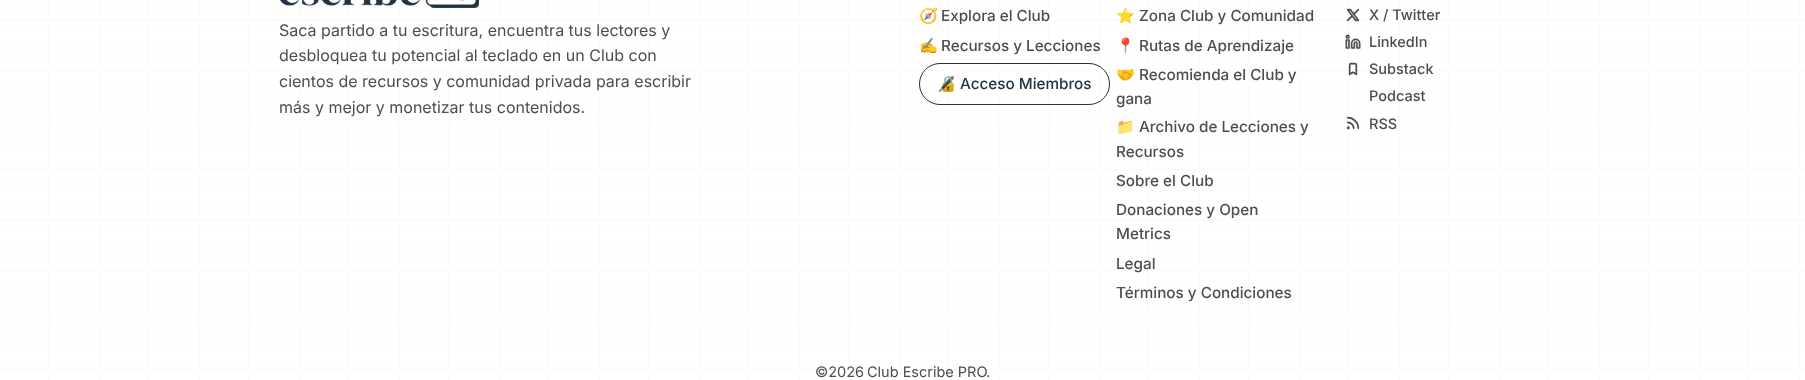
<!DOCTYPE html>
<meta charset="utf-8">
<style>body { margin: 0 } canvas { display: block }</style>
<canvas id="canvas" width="1805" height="380"></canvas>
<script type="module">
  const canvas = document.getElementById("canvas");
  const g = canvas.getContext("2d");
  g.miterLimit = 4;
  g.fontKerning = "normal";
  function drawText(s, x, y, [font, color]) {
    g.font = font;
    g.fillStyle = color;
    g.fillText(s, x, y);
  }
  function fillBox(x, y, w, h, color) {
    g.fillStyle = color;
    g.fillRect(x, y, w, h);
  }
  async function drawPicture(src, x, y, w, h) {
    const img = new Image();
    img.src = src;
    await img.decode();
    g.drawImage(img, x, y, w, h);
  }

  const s1 = ["16px Inter", "#4D4D4D"];
  const s2 = ["15.25px Noto Color Emoji", "#4D4D4D"];
  const s3 = ["500 15.25px Inter", "#4D4D4D"];
  const s4 = ["15.25px Noto Color Emoji", "#213242"];
  const s5 = ["500 15.25px Inter", "#213242"];
  const s6 = ["500 14.5px Inter", "#4D4D4D"];
  const s7 = ["14.5px Inter", "#4D4D4D"];

  fillBox(0, 0, 1805, 380, "#FFFFFF");
  await drawPicture("pic1.png", 0, 0, 1805, 361);
  await drawPicture("pic2.png", 48, 0, 1752, 380);
  fillBox(0, 19, 1805, 2, "#FCFBFA");
  fillBox(0, 69, 1805, 2, "#FCFBFA");
  fillBox(0, 119, 1805, 2, "#FCFBFA");
  fillBox(0, 169, 1805, 2, "#FCFBFA");
  fillBox(0, 219, 1805, 2, "#FCFBFA");
  fillBox(0, 269, 1805, 2, "#FCFBFA");
  fillBox(0, 319, 1805, 2, "#FCFBFA");
  fillBox(0, 369, 1805, 2, "#FCFBFA");
  await drawPicture("pic3.png", 280, 0, 199, 8);
  drawText("Saca partido a tu escritura, encuentra tus lectores y", 279, 36, s1);
  drawText("desbloquea tu potencial al teclado en un Club con", 279, 61, s1);
  drawText("cientos de recursos y comunidad privada para escribir", 279, 87, s1);
  drawText("más y mejor y monetizar tus contenidos.", 279, 113, s1);
  drawText("🧭", 919, 21, s2);
  drawText("Explora el Club", 941, 21, s3);
  drawText("✍", 919, 51, s2);
  drawText("Recursos y Lecciones", 941, 51, s3);
  g.beginPath();
  g.roundRect(919.5, 63.5, 190, 41, 20.5);
  g.strokeStyle = "#213242";
  g.stroke();
  drawText("🔏", 937, 89, s4);
  drawText("Acceso Miembros", 960, 89, s5);
  drawText("⭐️", 1116, 21, s2);
  drawText("Zona Club y Comunidad", 1139, 21, s3);
  drawText("📍", 1116, 51, s2);
  drawText("Rutas de Aprendizaje", 1139, 51, s3);
  drawText("🤝", 1116, 80, s2);
  drawText("Recomienda el Club y", 1139, 80, s3);
  drawText("gana", 1116, 104, s3);
  drawText("📁", 1116, 132, s2);
  drawText("Archivo de Lecciones y", 1139, 132, s3);
  drawText("Recursos", 1116, 157, s3);
  drawText("Sobre el Club", 1116, 186, s3);
  drawText("Donaciones y Open", 1116, 215, s3);
  drawText("Metrics", 1116, 239, s3);
  drawText("Legal", 1116, 269, s3);
  drawText("Términos y Condiciones", 1116, 298, s3);
  await drawPicture("pic4.png", 1346, 8, 14, 14);
  drawText("X / Twitter", 1369, 20, s6);
  await drawPicture("pic5.png", 1345, 34, 16, 15);
  drawText("LinkedIn", 1369, 47, s6);
  await drawPicture("pic6.png", 1348, 62, 10, 14);
  drawText("Substack", 1369, 74, s6);
  drawText("Podcast", 1369, 101, s6);
  await drawPicture("pic7.png", 1346, 116, 14, 14);
  drawText("RSS", 1369, 129, s6);
  drawText("©2026", 815, 377, s7);
  drawText("Club Escribe PRO", 867, 377, s7);
  drawText(".", 986, 377, s7);
</script>
